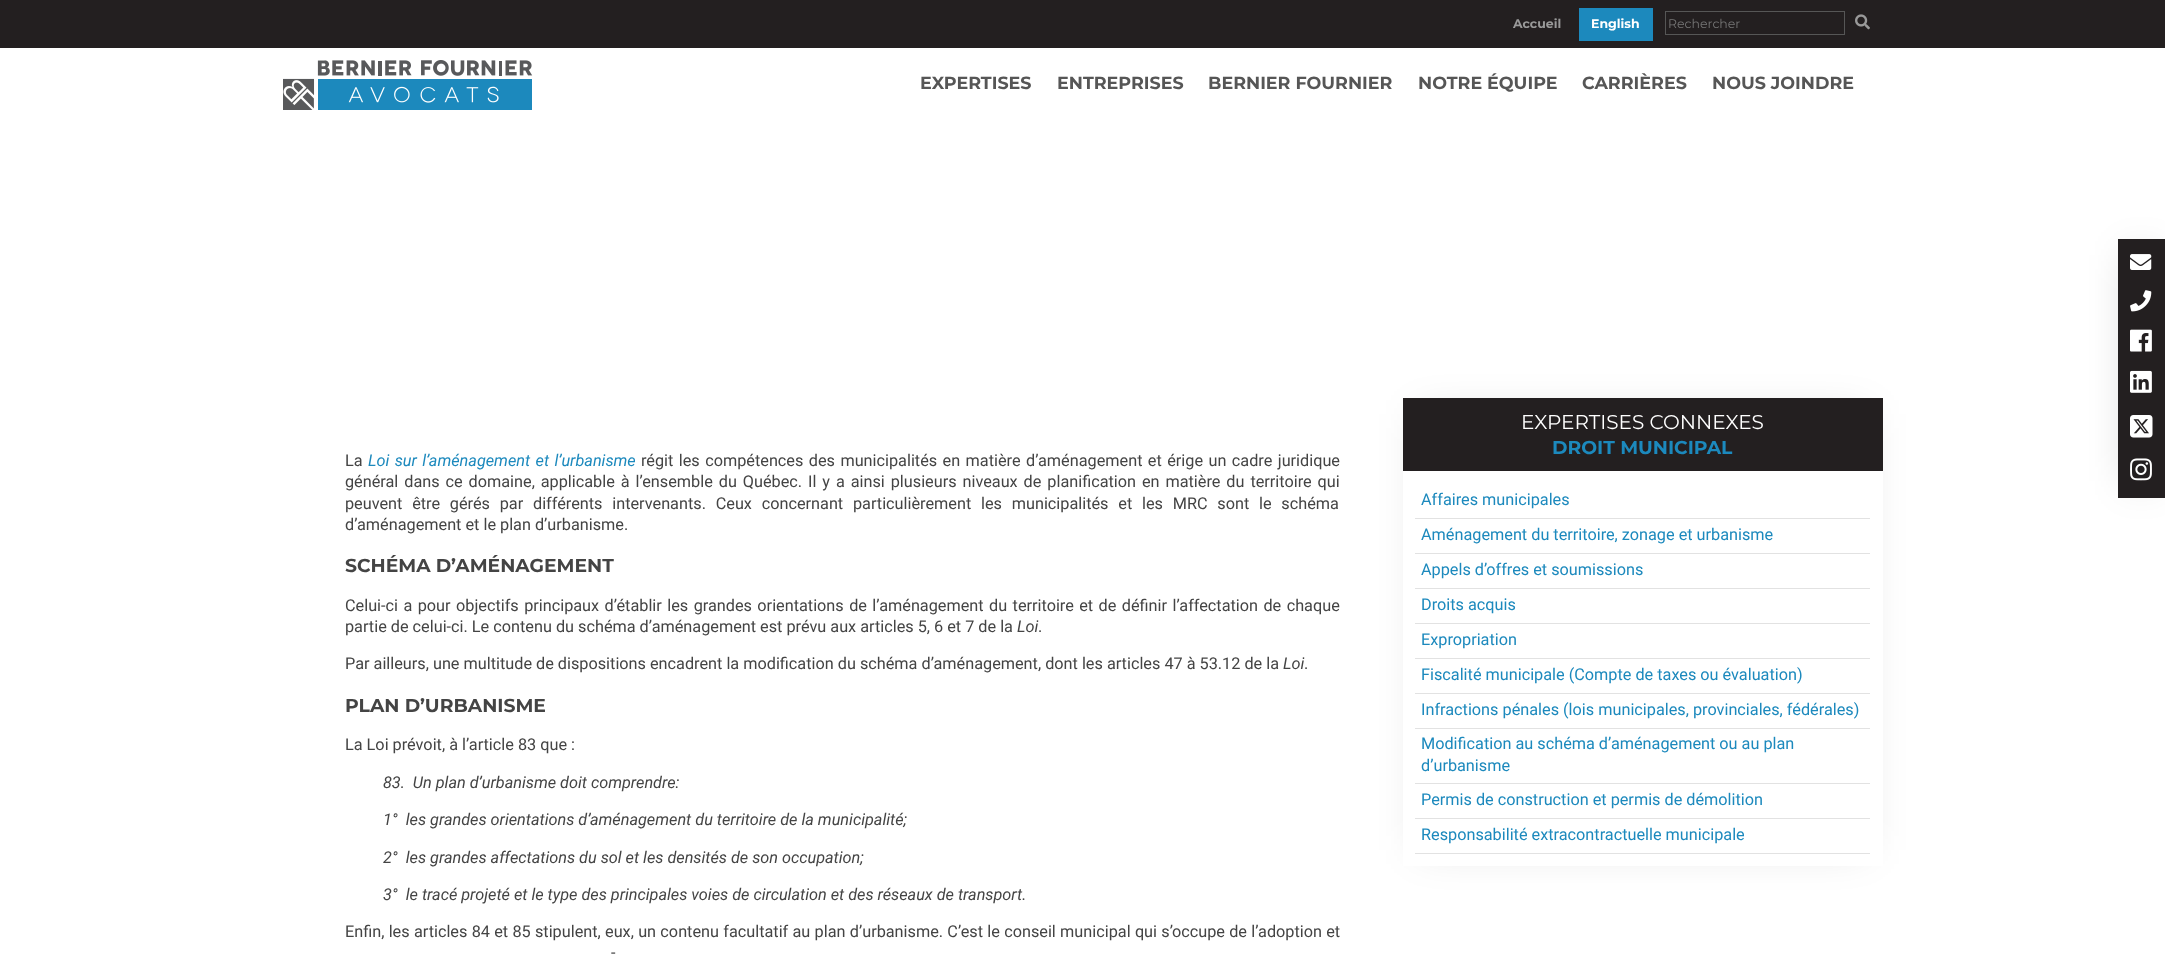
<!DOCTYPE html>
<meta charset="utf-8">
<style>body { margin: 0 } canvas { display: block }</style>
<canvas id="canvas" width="2165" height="954"></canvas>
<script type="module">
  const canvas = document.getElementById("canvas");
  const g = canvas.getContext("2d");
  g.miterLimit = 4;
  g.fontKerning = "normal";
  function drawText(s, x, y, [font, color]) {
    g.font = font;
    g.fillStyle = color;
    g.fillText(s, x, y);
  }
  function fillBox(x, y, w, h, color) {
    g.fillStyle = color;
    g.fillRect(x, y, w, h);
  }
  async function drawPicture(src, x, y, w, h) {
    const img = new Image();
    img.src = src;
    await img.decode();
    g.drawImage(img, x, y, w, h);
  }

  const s1 = ["bold 12.5px Montserrat", "#999999"];
  const s2 = ["bold 12.5px Montserrat", "#FFFFFF"];
  const s3 = ["12.5px Montserrat", "#757575"];
  const s4 = ["bold 17.5px Montserrat", "#565656"];
  const s5 = ["16.25px Roboto", "#444444"];
  const s6 = ["italic 16.25px Roboto", "#1C89BD"];
  const s7 = ["bold 18.75px Montserrat", "#444444"];
  const s8 = ["italic 16.25px Roboto", "#444444"];
  const s9 = ["20px Montserrat", "#FFFFFF"];
  const s10 = ["bold 18.75px Montserrat", "#1C89BD"];
  const s11 = ["16.25px Roboto", "#1C89BD"];

  fillBox(0, 0, 2165, 954, "#FFFFFF");
  fillBox(0, 0, 2165, 48, "#231F20");
  drawText("Accueil", 1513, 28, s1);
  fillBox(1579, 8, 74, 33, "#1C89BD");
  drawText("English", 1591, 28, s2);
  g.strokeStyle = "#565656";
  g.strokeRect(1665.5, 11.5, 179, 23);
  drawText("Rechercher", 1668, 28, s3);
  await drawPicture("pic1.png", 1855, 14, 15, 16);
  await drawPicture("pic2.png", 283, 60, 250, 50);
  drawText("EXPERTISES", 920, 89, s4);
  drawText("ENTREPRISES", 1057, 89, s4);
  drawText("BERNIER FOURNIER", 1208, 89, s4);
  drawText("NOTRE ÉQUIPE", 1418, 89, s4);
  drawText("CARRIÈRES", 1582, 89, s4);
  drawText("NOUS JOINDRE", 1712, 89, s4);
  g.fillStyle = "rgba(0, 0, 0, 0.33)";
  g.filter = "blur(20px)";
  g.beginPath();
  g.rect(2134, 255, 15, 226);
  g.fill();
  g.filter = "none";
  fillBox(2118, 239, 47, 259, "#231F20");
  await drawPicture("pic3.png", 2130, 254, 22, 16);
  await drawPicture("pic4.png", 2130, 290, 22, 22);
  await drawPicture("pic5.png", 2130, 329, 22, 23);
  await drawPicture("pic6.png", 2130, 370, 22, 23);
  await drawPicture("pic7.png", 2130, 415, 23, 23);
  await drawPicture("pic8.png", 2130, 458, 22, 23);
  drawText("La", 345, 466, s5);
  g.wordSpacing = "1.4px";
  drawText("Loi sur l’aménagement et l’urbanisme", 368, 466, s6);
  drawText("régit les compétences des municipalités en matière d’aménagement et érige un cadre juridique", 641, 466, s5);
  g.wordSpacing = "1.9px";
  drawText("général dans ce domaine, applicable à l’ensemble du Québec. Il y a ainsi plusieurs niveaux de planification en matière du territoire qui", 345, 487, s5);
  g.wordSpacing = "5.75px";
  drawText("peuvent être gérés par différents intervenants. Ceux concernant particulièrement les municipalités et les MRC sont le schéma", 345, 509, s5);
  g.wordSpacing = "0px";
  drawText("d’aménagement et le plan d’urbanisme.", 345, 530, s5);
  drawText("SCHÉMA D’AMÉNAGEMENT", 345, 572, s7);
  g.wordSpacing = "1.4px";
  drawText("Celui-ci a pour objectifs principaux d’établir les grandes orientations de l’aménagement du territoire et de définir l’affectation de chaque", 345, 611, s5);
  g.wordSpacing = "0px";
  drawText("partie de celui-ci. Le contenu du schéma d’aménagement est prévu aux articles 5, 6 et 7 de la", 345, 632, s5);
  drawText("Loi", 1017, 632, s8);
  drawText(".", 1038, 632, s5);
  drawText("Par ailleurs, une multitude de dispositions encadrent la modification du schéma d’aménagement, dont les articles 47 à 53.12 de la", 345, 669, s5);
  drawText("Loi", 1283, 669, s8);
  drawText(".", 1304, 669, s5);
  drawText("PLAN D’URBANISME", 345, 712, s7);
  drawText("La Loi prévoit, à l’article 83 que :", 345, 750, s5);
  drawText("83.  Un plan d’urbanisme doit comprendre:", 383, 788, s8);
  drawText("1°  les grandes orientations d’aménagement du territoire de la municipalité;", 383, 825, s8);
  drawText("2°  les grandes affectations du sol et les densités de son occupation;", 383, 863, s8);
  drawText("3°  le tracé projeté et le type des principales voies de circulation et des réseaux de transport.", 383, 900, s8);
  g.wordSpacing = "0.25px";
  drawText("Enfin, les articles 84 et 85 stipulent, eux, un contenu facultatif au plan d’urbanisme. C’est le conseil municipal qui s’occupe de l’adoption et", 345, 937, s5);
  g.wordSpacing = "0px";
  drawText("-", 611, 958, s5);
  g.fillStyle = "rgba(0, 0, 0, 0.13)";
  g.filter = "blur(20px)";
  g.beginPath();
  g.rect(1419, 414, 447, 436);
  g.fill();
  g.filter = "none";
  fillBox(1403, 471, 480, 395, "#FFFFFF");
  fillBox(1403, 398, 480, 73, "#231F20");
  drawText("EXPERTISES CONNEXES", 1521, 429, s9);
  drawText("DROIT MUNICIPAL", 1552, 454, s10);
  fillBox(1415, 518, 455, 1, "#E2E2E2");
  drawText("Affaires municipales", 1421, 505, s11);
  fillBox(1415, 553, 455, 1, "#E2E2E2");
  drawText("Aménagement du territoire, zonage et urbanisme", 1421, 540, s11);
  fillBox(1415, 588, 455, 1, "#E2E2E2");
  drawText("Appels d’offres et soumissions", 1421, 575, s11);
  fillBox(1415, 623, 455, 1, "#E2E2E2");
  drawText("Droits acquis", 1421, 610, s11);
  fillBox(1415, 658, 455, 1, "#E2E2E2");
  drawText("Expropriation", 1421, 645, s11);
  fillBox(1415, 693, 455, 1, "#E2E2E2");
  drawText("Fiscalité municipale (Compte de taxes ou évaluation)", 1421, 680, s11);
  fillBox(1415, 728, 455, 1, "#E2E2E2");
  drawText("Infractions pénales (lois municipales, provinciales, fédérales)", 1421, 715, s11);
  fillBox(1415, 783, 455, 1, "#E2E2E2");
  drawText("Modification au schéma d’aménagement ou au plan", 1421, 749, s11);
  drawText("d’urbanisme", 1421, 771, s11);
  fillBox(1415, 818, 455, 1, "#E2E2E2");
  drawText("Permis de construction et permis de démolition", 1421, 805, s11);
  fillBox(1415, 853, 455, 1, "#E2E2E2");
  drawText("Responsabilité extracontractuelle municipale", 1421, 840, s11);
</script>
